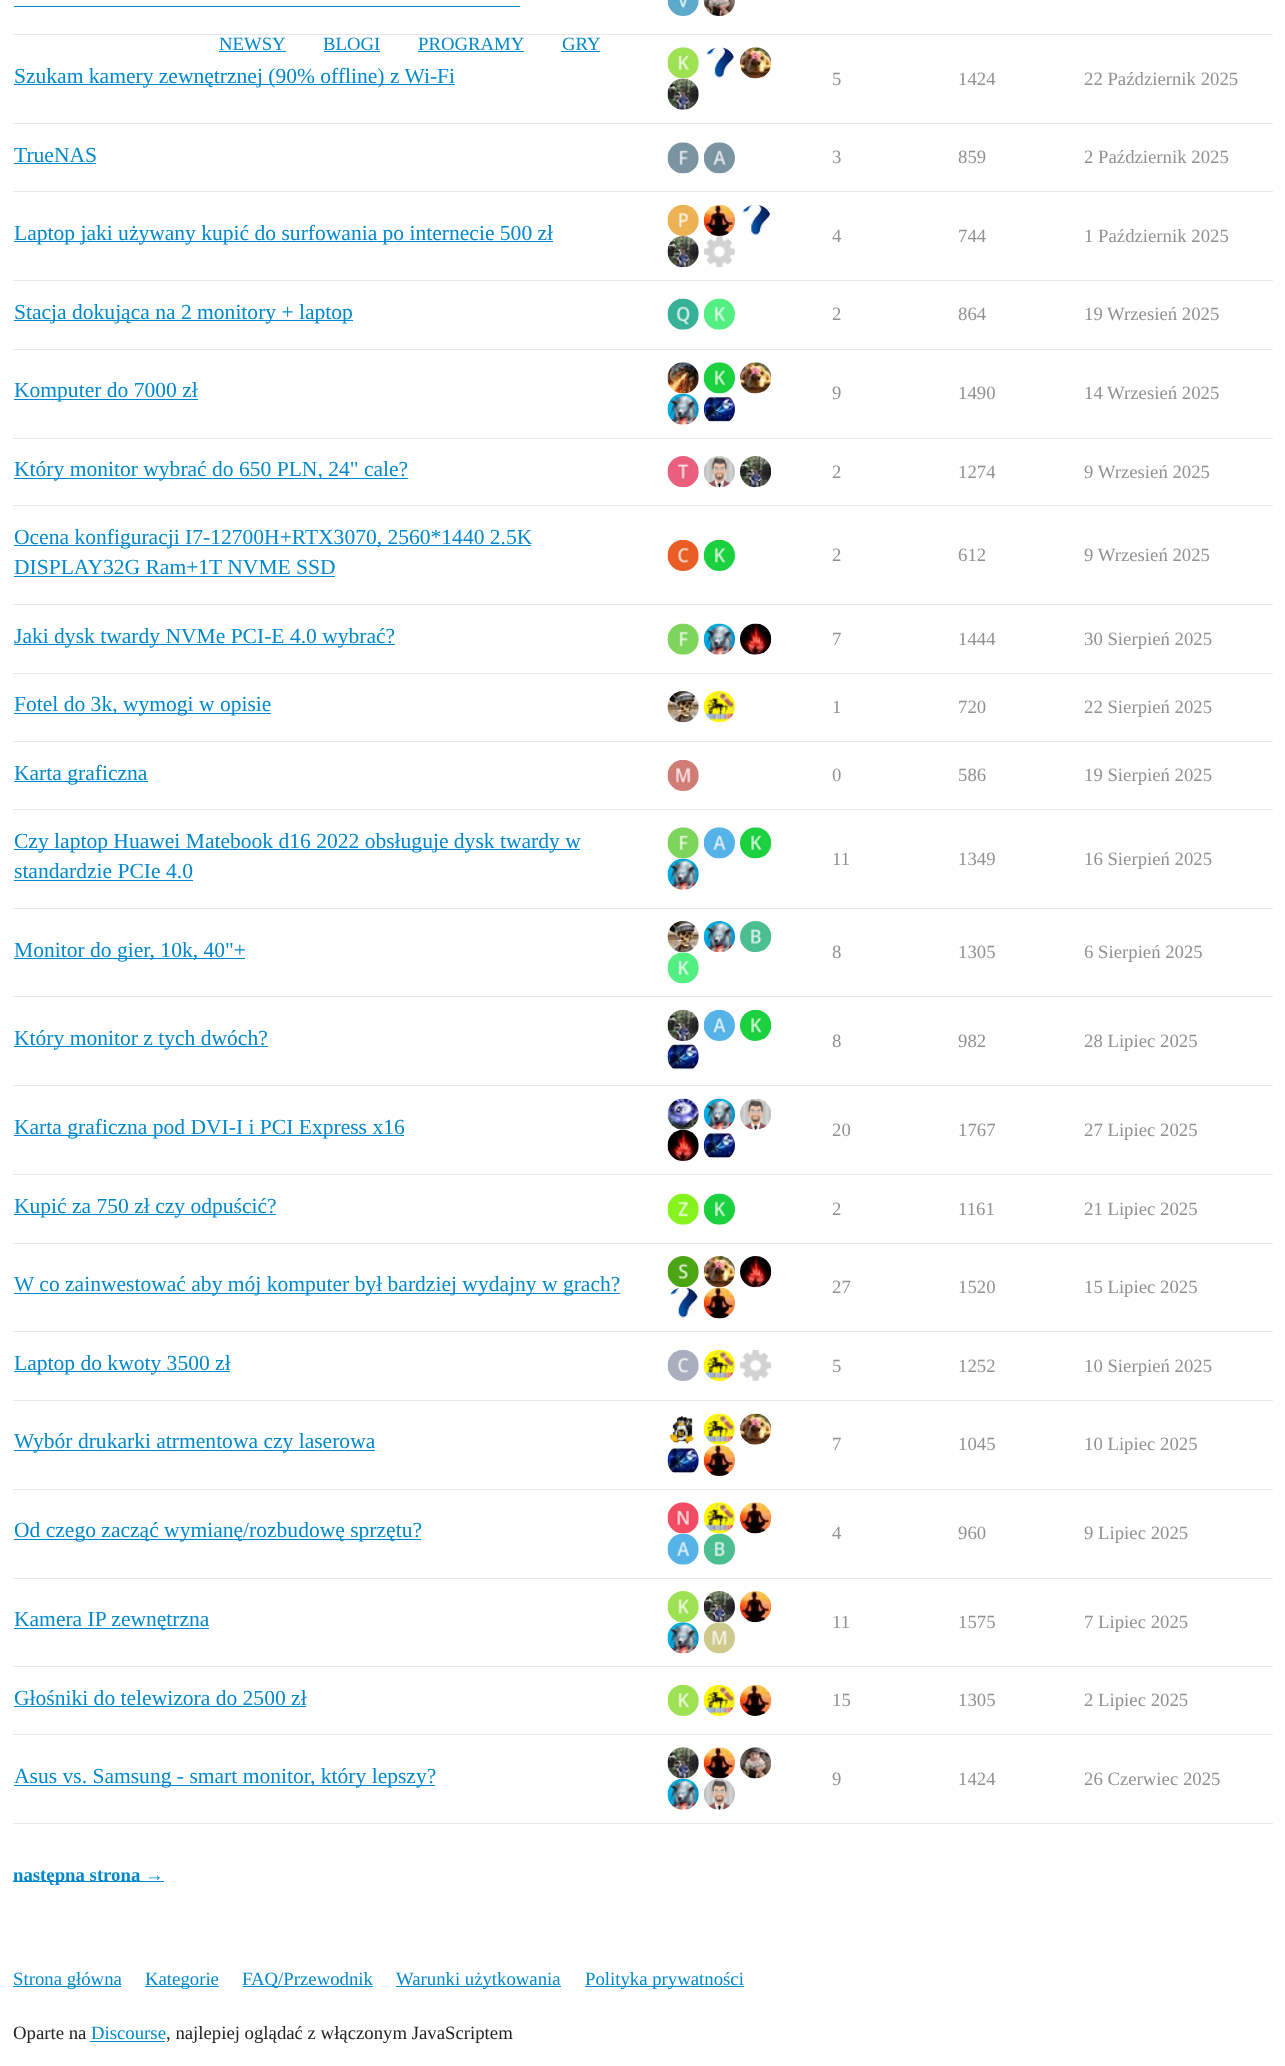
<!DOCTYPE html>
<meta charset="utf-8">
<style>body { margin: 0 } canvas { display: block }</style>
<canvas id="canvas" width="1285" height="2066"></canvas>
<script type="module">
  const canvas = document.getElementById("canvas");
  const g = canvas.getContext("2d");
  g.miterLimit = 4;
  g.fontKerning = "normal";
  function drawText(s, x, y, [font, color]) {
    g.font = font;
    g.fillStyle = color;
    g.fillText(s, x, y);
  }
  function fillBox(x, y, w, h, color) {
    g.fillStyle = color;
    g.fillRect(x, y, w, h);
  }
  async function drawPicture(src, x, y, w, h) {
    const img = new Image();
    img.src = src;
    await img.decode();
    g.drawImage(img, x, y, w, h);
  }

  const s1 = ["18.75px Liberation Serif", "#0088CC"];
  const s2 = ["21.55px Liberation Serif", "#0088CC"];
  const s3 = ["18.75px Liberation Serif", "#919191"];
  const s4 = ["bold 18.75px Liberation Serif", "#0088CC"];
  const s5 = ["18.75px Liberation Serif", "#222222"];

  fillBox(0, 0, 1285, 2066, "#FFFFFF");
  drawText("NEWSY", 219, 50, s1);
  fillBox(219, 51, 67, 1, "#0088CC");
  drawText("BLOGI", 323, 50, s1);
  fillBox(324, 51, 56, 1, "#0088CC");
  drawText("PROGRAMY", 418, 50, s1);
  fillBox(418, 51, 106, 1, "#0088CC");
  drawText("GRY", 562, 50, s1);
  fillBox(561, 51, 39, 1, "#0088CC");
  fillBox(13, 34, 1260, 1, "#E9E9E9");
  fillBox(14, 6, 506, 1, "#0088CC");
  await drawPicture("pic1.png", 667, 0, 32, 16);
  await drawPicture("pic2.png", 703, 0, 32, 16);
  fillBox(13, 123, 1260, 1, "#E9E9E9");
  fillBox(14, 84, 441, 1, "#0088CC");
  drawText("Szukam kamery zewnętrznej (90% offline) z Wi-Fi", 14, 83, s2);
  await drawPicture("pic3.png", 667, 47, 32, 32);
  await drawPicture("pic4.png", 706, 47, 28, 31);
  await drawPicture("pic5.png", 740, 47, 32, 32);
  await drawPicture("pic6.png", 667, 78, 32, 32);
  drawText("5", 832, 85, s3);
  drawText("1424", 958, 85, s3);
  drawText("22 Październik 2025", 1084, 85, s3);
  fillBox(13, 191, 1260, 1, "#E9E9E9");
  drawText("TrueNAS", 14, 162, s2);
  fillBox(14, 163, 82, 1, "#0088CC");
  await drawPicture("pic7.png", 667, 142, 32, 32);
  await drawPicture("pic8.png", 703, 142, 32, 32);
  drawText("3", 832, 163, s3);
  drawText("859", 958, 163, s3);
  drawText("2 Październik 2025", 1084, 163, s3);
  fillBox(13, 280, 1260, 1, "#E9E9E9");
  fillBox(14, 241, 539, 1, "#0088CC");
  drawText("Laptop jaki używany kupić do surfowania po internecie 500 zł", 14, 240, s2);
  await drawPicture("pic9.png", 667, 204, 32, 32);
  await drawPicture("pic10.png", 703, 204, 32, 32);
  await drawPicture("pic11.png", 741, 205, 30, 30);
  await drawPicture("pic12.png", 667, 236, 32, 32);
  await drawPicture("pic13.png", 704, 236, 31, 31);
  drawText("4", 832, 242, s3);
  drawText("744", 958, 242, s3);
  drawText("1 Październik 2025", 1084, 242, s3);
  fillBox(13, 349, 1260, 1, "#E9E9E9");
  fillBox(14, 320, 339, 1, "#0088CC");
  drawText("Stacja dokująca na 2 monitory + laptop", 14, 319, s2);
  await drawPicture("pic14.png", 667, 298, 32, 32);
  await drawPicture("pic15.png", 703, 298, 32, 32);
  drawText("2", 832, 320, s3);
  drawText("864", 958, 320, s3);
  drawText("19 Wrzesień 2025", 1084, 320, s3);
  fillBox(13, 438, 1260, 1, "#E9E9E9");
  fillBox(14, 399, 184, 1, "#0088CC");
  drawText("Komputer do 7000 zł", 14, 397, s2);
  await drawPicture("pic16.png", 667, 362, 32, 32);
  await drawPicture("pic17.png", 703, 362, 32, 32);
  await drawPicture("pic5.png", 740, 362, 32, 32);
  await drawPicture("pic18.png", 667, 393, 32, 32);
  await drawPicture("pic19.png", 703, 393, 32, 32);
  drawText("9", 832, 399, s3);
  drawText("1490", 958, 399, s3);
  drawText("14 Wrzesień 2025", 1084, 399, s3);
  fillBox(13, 505, 1260, 1, "#E9E9E9");
  fillBox(14, 478, 394, 1, "#0088CC");
  drawText("Który monitor wybrać do 650 PLN, 24\" cale?", 14, 476, s2);
  await drawPicture("pic20.png", 667, 456, 32, 32);
  await drawPicture("pic21.png", 703, 456, 32, 32);
  await drawPicture("pic22.png", 740, 456, 32, 32);
  drawText("2", 832, 478, s3);
  drawText("1274", 958, 478, s3);
  drawText("9 Wrzesień 2025", 1084, 478, s3);
  fillBox(13, 604, 1260, 1, "#E9E9E9");
  fillBox(14, 545, 517, 1, "#0088CC");
  drawText("Ocena konfiguracji I7-12700H+RTX3070, 2560*1440 2.5K", 14, 544, s2);
  drawText("DISPLAY32G Ram+1T NVME SSD", 14, 574, s2);
  fillBox(14, 576, 321, 1, "#0088CC");
  await drawPicture("pic23.png", 667, 539, 32, 32);
  await drawPicture("pic24.png", 703, 539, 32, 32);
  drawText("2", 832, 561, s3);
  drawText("612", 958, 561, s3);
  drawText("9 Wrzesień 2025", 1084, 561, s3);
  fillBox(13, 673, 1260, 1, "#E9E9E9");
  fillBox(14, 644, 381, 1, "#0088CC");
  drawText("Jaki dysk twardy NVMe PCI-E 4.0 wybrać?", 14, 643, s2);
  await drawPicture("pic25.png", 667, 623, 32, 32);
  await drawPicture("pic26.png", 703, 623, 32, 32);
  await drawPicture("pic27.png", 740, 623, 32, 32);
  drawText("7", 832, 645, s3);
  drawText("1444", 958, 645, s3);
  drawText("30 Sierpień 2025", 1084, 645, s3);
  fillBox(13, 741, 1260, 1, "#E9E9E9");
  fillBox(14, 713, 257, 1, "#0088CC");
  drawText("Fotel do 3k, wymogi w opisie", 14, 711, s2);
  await drawPicture("pic28.png", 667, 691, 32, 32);
  await drawPicture("pic29.png", 703, 691, 32, 32);
  drawText("1", 832, 713, s3);
  drawText("720", 958, 713, s3);
  drawText("22 Sierpień 2025", 1084, 713, s3);
  fillBox(13, 809, 1260, 1, "#E9E9E9");
  fillBox(14, 781, 134, 1, "#0088CC");
  drawText("Karta graficzna", 14, 780, s2);
  await drawPicture("pic30.png", 667, 759, 32, 32);
  drawText("0", 832, 781, s3);
  drawText("586", 958, 781, s3);
  drawText("19 Sierpień 2025", 1084, 781, s3);
  fillBox(13, 908, 1260, 1, "#E9E9E9");
  fillBox(14, 849, 566, 1, "#0088CC");
  drawText("Czy laptop Huawei Matebook d16 2022 obsługuje dysk twardy w", 14, 848, s2);
  drawText("standardzie PCIe 4.0", 14, 878, s2);
  fillBox(14, 880, 179, 1, "#0088CC");
  await drawPicture("pic31.png", 667, 827, 32, 32);
  await drawPicture("pic32.png", 703, 827, 32, 32);
  await drawPicture("pic33.png", 740, 827, 32, 32);
  await drawPicture("pic34.png", 667, 858, 32, 32);
  drawText("11", 832, 865, s3);
  drawText("1349", 958, 865, s3);
  drawText("16 Sierpień 2025", 1084, 865, s3);
  fillBox(13, 996, 1260, 1, "#E9E9E9");
  fillBox(14, 958, 231, 1, "#0088CC");
  drawText("Monitor do gier, 10k, 40\"+", 14, 957, s2);
  await drawPicture("pic35.png", 667, 921, 32, 32);
  await drawPicture("pic36.png", 703, 921, 32, 32);
  await drawPicture("pic37.png", 740, 921, 32, 32);
  await drawPicture("pic38.png", 667, 952, 32, 32);
  drawText("8", 832, 958, s3);
  drawText("1305", 958, 958, s3);
  drawText("6 Sierpień 2025", 1084, 958, s3);
  fillBox(13, 1085, 1260, 1, "#E9E9E9");
  fillBox(14, 1046, 254, 1, "#0088CC");
  drawText("Który monitor z tych dwóch?", 14, 1045, s2);
  await drawPicture("pic39.png", 667, 1009, 32, 32);
  await drawPicture("pic40.png", 703, 1009, 32, 32);
  await drawPicture("pic41.png", 740, 1009, 32, 32);
  await drawPicture("pic42.png", 667, 1041, 32, 31);
  drawText("8", 832, 1047, s3);
  drawText("982", 958, 1047, s3);
  drawText("28 Lipiec 2025", 1084, 1047, s3);
  fillBox(13, 1174, 1260, 1, "#E9E9E9");
  fillBox(14, 1135, 390, 1, "#0088CC");
  drawText("Karta graficzna pod DVI-I i PCI Express x16", 14, 1134, s2);
  await drawPicture("pic43.png", 667, 1098, 32, 32);
  await drawPicture("pic26.png", 703, 1098, 32, 32);
  await drawPicture("pic44.png", 740, 1098, 32, 32);
  await drawPicture("pic45.png", 667, 1129, 32, 32);
  await drawPicture("pic46.png", 703, 1130, 32, 31);
  drawText("20", 832, 1136, s3);
  drawText("1767", 958, 1136, s3);
  drawText("27 Lipiec 2025", 1084, 1136, s3);
  fillBox(13, 1243, 1260, 1, "#E9E9E9");
  fillBox(14, 1214, 262, 1, "#0088CC");
  drawText("Kupić za 750 zł czy odpuścić?", 14, 1213, s2);
  await drawPicture("pic47.png", 667, 1193, 32, 32);
  await drawPicture("pic48.png", 703, 1193, 32, 32);
  drawText("2", 832, 1215, s3);
  drawText("1161", 958, 1215, s3);
  drawText("21 Lipiec 2025", 1084, 1215, s3);
  fillBox(13, 1331, 1260, 1, "#E9E9E9");
  fillBox(14, 1293, 606, 1, "#0088CC");
  drawText("W co zainwestować aby mój komputer był bardziej wydajny w grach?", 14, 1291, s2);
  await drawPicture("pic49.png", 667, 1256, 32, 32);
  await drawPicture("pic50.png", 703, 1256, 32, 32);
  await drawPicture("pic51.png", 740, 1256, 32, 32);
  await drawPicture("pic52.png", 668, 1287, 30, 31);
  await drawPicture("pic53.png", 703, 1287, 32, 32);
  drawText("27", 832, 1293, s3);
  drawText("1520", 958, 1293, s3);
  drawText("15 Lipiec 2025", 1084, 1293, s3);
  fillBox(13, 1400, 1260, 1, "#E9E9E9");
  fillBox(14, 1371, 216, 1, "#0088CC");
  drawText("Laptop do kwoty 3500 zł", 14, 1370, s2);
  await drawPicture("pic54.png", 667, 1349, 32, 32);
  await drawPicture("pic55.png", 703, 1349, 32, 32);
  await drawPicture("pic56.png", 740, 1350, 31, 31);
  drawText("5", 832, 1372, s3);
  drawText("1252", 958, 1372, s3);
  drawText("10 Sierpień 2025", 1084, 1372, s3);
  fillBox(13, 1489, 1260, 1, "#E9E9E9");
  fillBox(14, 1450, 361, 1, "#0088CC");
  drawText("Wybór drukarki atrmentowa czy laserowa", 14, 1448, s2);
  await drawPicture("pic57.png", 670, 1415, 24, 29);
  await drawPicture("pic58.png", 703, 1413, 32, 32);
  await drawPicture("pic59.png", 740, 1413, 32, 32);
  await drawPicture("pic60.png", 667, 1445, 32, 31);
  await drawPicture("pic61.png", 703, 1445, 32, 31);
  drawText("7", 832, 1450, s3);
  drawText("1045", 958, 1450, s3);
  drawText("10 Lipiec 2025", 1084, 1450, s3);
  fillBox(13, 1578, 1260, 1, "#E9E9E9");
  fillBox(14, 1539, 407, 1, "#0088CC");
  drawText("Od czego zacząć wymianę/rozbudowę sprzętu?", 14, 1537, s2);
  await drawPicture("pic62.png", 667, 1502, 32, 32);
  await drawPicture("pic63.png", 703, 1502, 32, 32);
  await drawPicture("pic64.png", 740, 1502, 32, 32);
  await drawPicture("pic65.png", 667, 1533, 32, 32);
  await drawPicture("pic66.png", 703, 1533, 32, 32);
  drawText("4", 832, 1539, s3);
  drawText("960", 958, 1539, s3);
  drawText("9 Lipiec 2025", 1084, 1539, s3);
  fillBox(13, 1666, 1260, 1, "#E9E9E9");
  fillBox(14, 1628, 195, 1, "#0088CC");
  drawText("Kamera IP zewnętrzna", 14, 1626, s2);
  await drawPicture("pic67.png", 667, 1591, 32, 32);
  await drawPicture("pic68.png", 703, 1591, 32, 32);
  await drawPicture("pic69.png", 740, 1591, 32, 32);
  await drawPicture("pic70.png", 667, 1622, 32, 32);
  await drawPicture("pic71.png", 703, 1622, 32, 32);
  drawText("11", 832, 1628, s3);
  drawText("1575", 958, 1628, s3);
  drawText("7 Lipiec 2025", 1084, 1628, s3);
  fillBox(13, 1734, 1260, 1, "#E9E9E9");
  drawText("Głośniki do telewizora do 2500 zł", 14, 1705, s2);
  fillBox(14, 1706, 292, 1, "#0088CC");
  await drawPicture("pic72.png", 667, 1684, 32, 32);
  await drawPicture("pic55.png", 703, 1684, 32, 32);
  await drawPicture("pic73.png", 740, 1684, 32, 32);
  drawText("15", 832, 1706, s3);
  drawText("1305", 958, 1706, s3);
  drawText("2 Lipiec 2025", 1084, 1706, s3);
  fillBox(13, 1823, 1260, 1, "#E9E9E9");
  fillBox(14, 1785, 421, 1, "#0088CC");
  drawText("Asus vs. Samsung - smart monitor, który lepszy?", 14, 1783, s2);
  await drawPicture("pic74.png", 667, 1747, 32, 32);
  await drawPicture("pic75.png", 703, 1747, 32, 32);
  await drawPicture("pic76.png", 740, 1747, 32, 32);
  await drawPicture("pic77.png", 667, 1778, 32, 32);
  await drawPicture("pic78.png", 703, 1778, 32, 32);
  drawText("9", 832, 1785, s3);
  drawText("1424", 958, 1785, s3);
  drawText("26 Czerwiec 2025", 1084, 1785, s3);
  fillBox(13, 1881, 151, 1, "#0088CC");
  drawText("następna strona →", 13, 1881, s4);
  fillBox(13, 1986, 108, 1, "#0088CC");
  drawText("Strona główna", 13, 1985, s1);
  fillBox(145, 1986, 74, 1, "#0088CC");
  drawText("Kategorie", 145, 1985, s1);
  fillBox(243, 1986, 130, 1, "#0088CC");
  drawText("FAQ/Przewodnik", 242, 1985, s1);
  fillBox(396, 1986, 165, 1, "#0088CC");
  drawText("Warunki użytkowania", 396, 1985, s1);
  fillBox(585, 1986, 159, 1, "#0088CC");
  drawText("Polityka prywatności", 585, 1985, s1);
  drawText("Oparte na", 13, 2039, s5);
  drawText("Discourse", 91, 2039, s1);
  fillBox(90, 2041, 75, 1, "#0088CC");
  drawText(", najlepiej oglądać z włączonym JavaScriptem", 166, 2039, s5);
</script>
